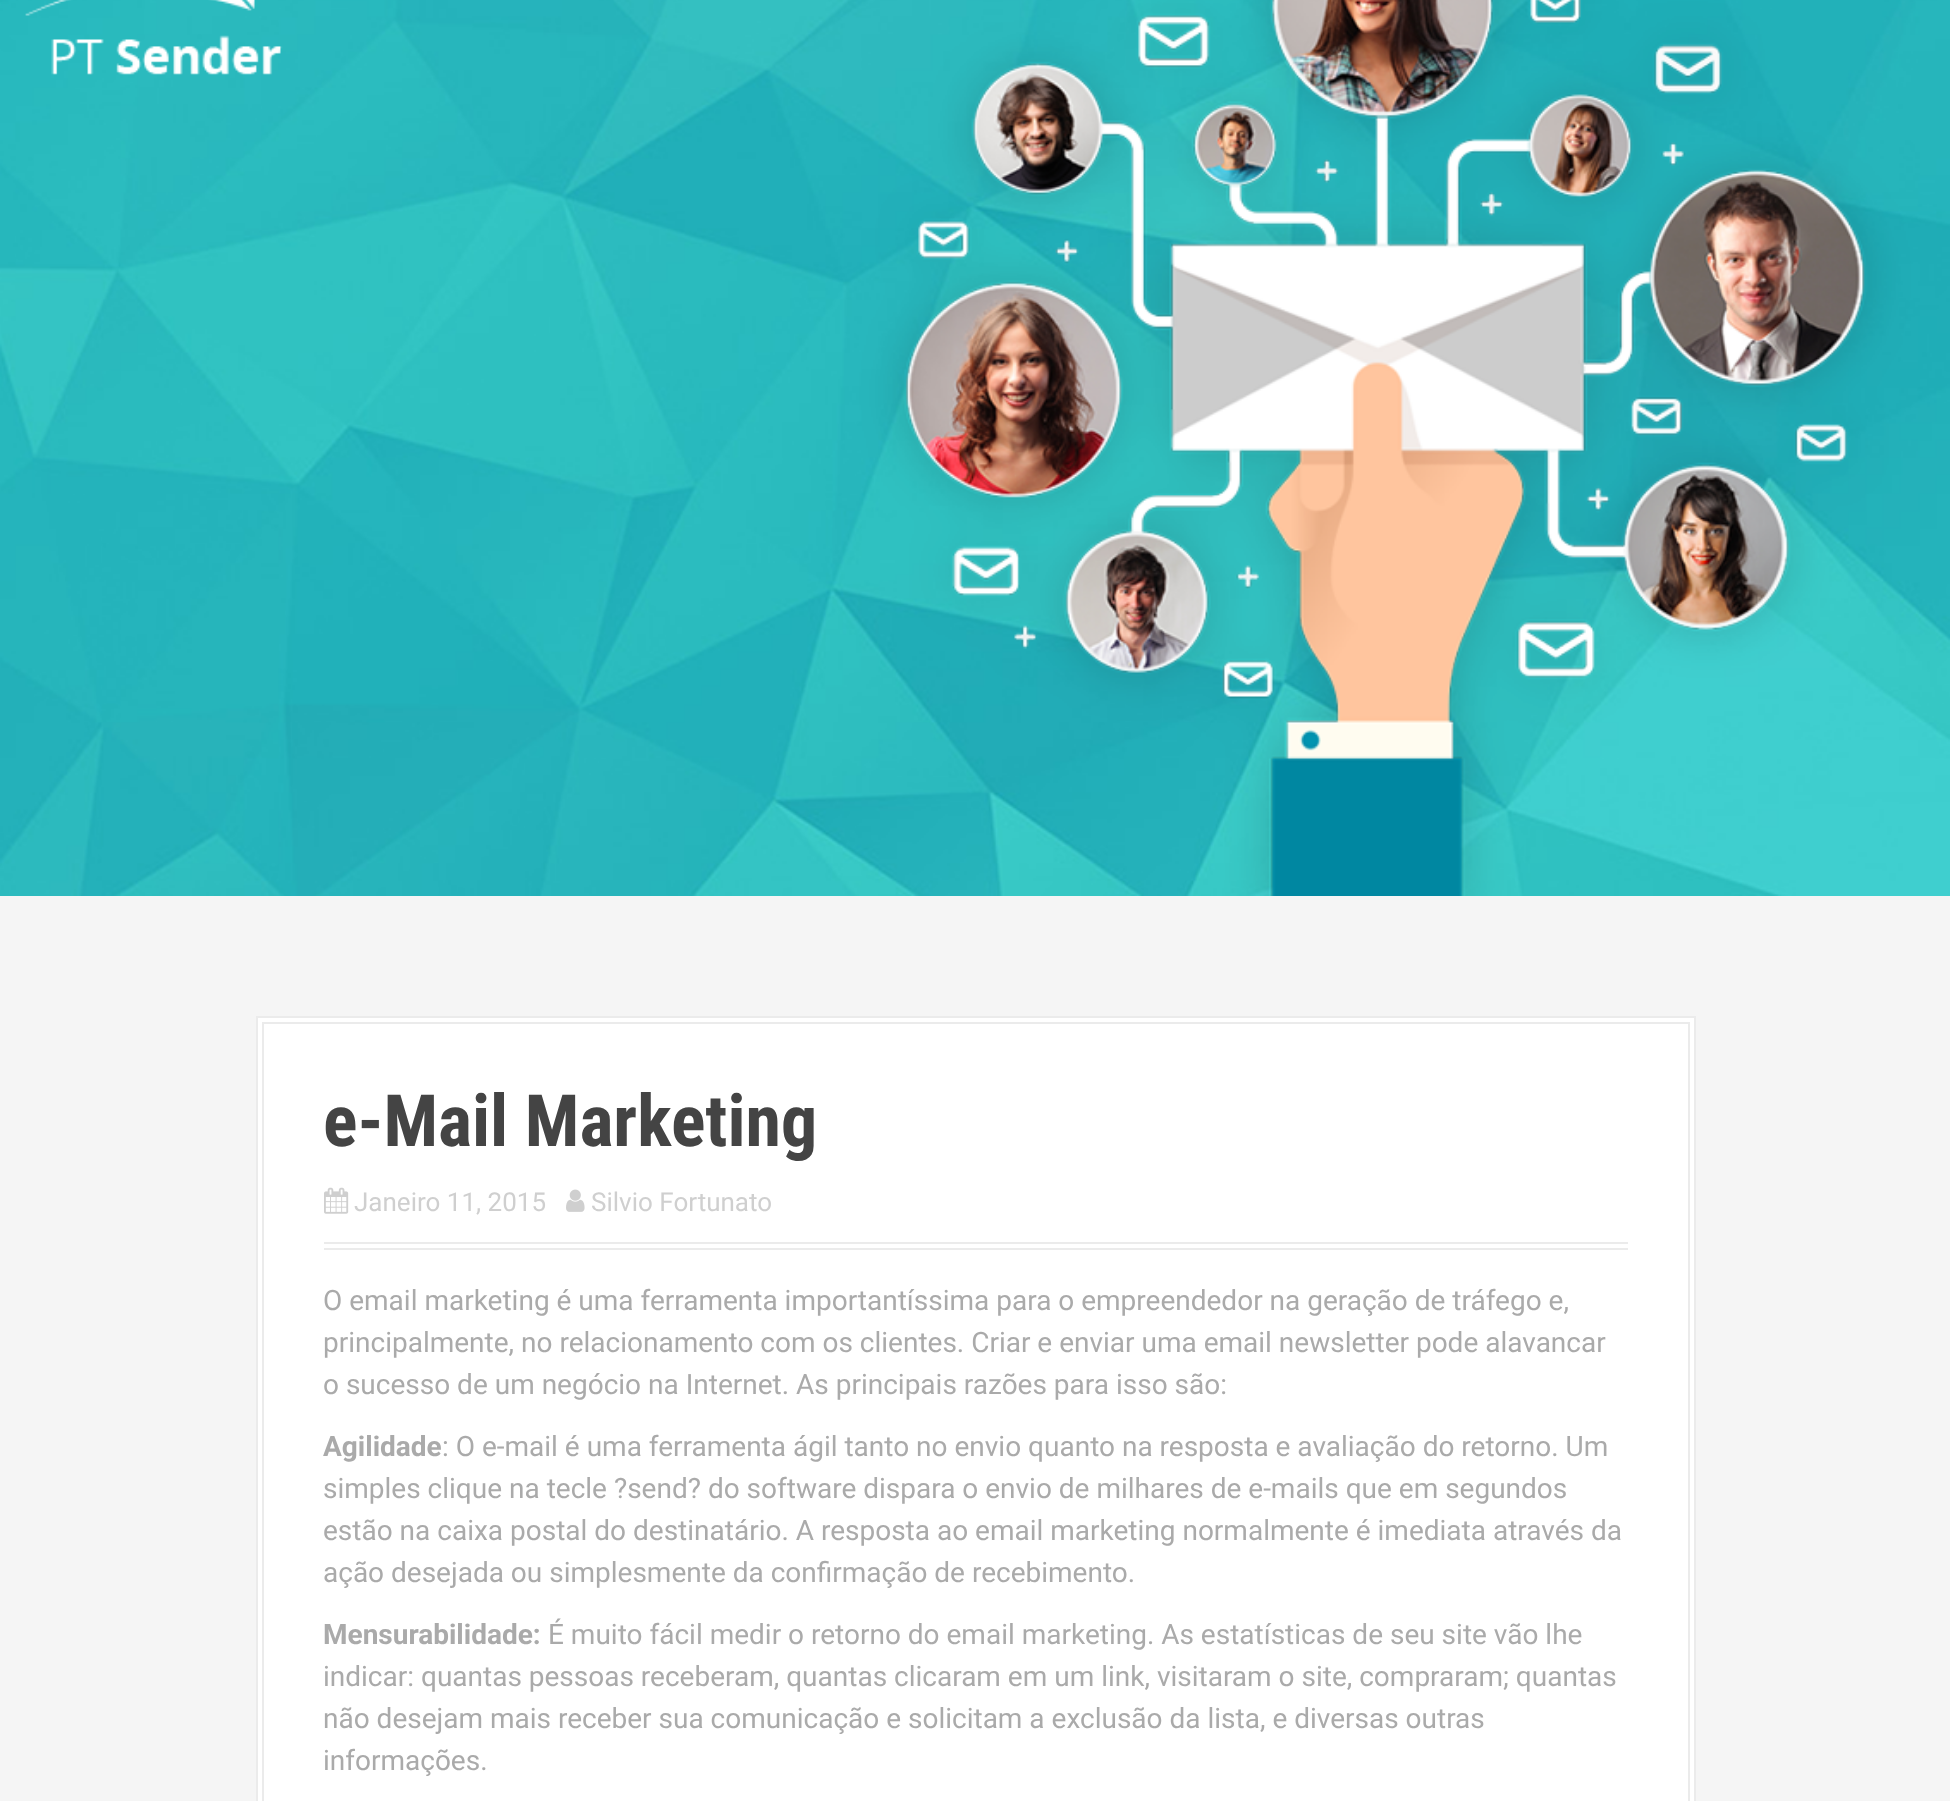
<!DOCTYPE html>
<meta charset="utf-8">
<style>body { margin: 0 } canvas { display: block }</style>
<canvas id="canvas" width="1950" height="1801"></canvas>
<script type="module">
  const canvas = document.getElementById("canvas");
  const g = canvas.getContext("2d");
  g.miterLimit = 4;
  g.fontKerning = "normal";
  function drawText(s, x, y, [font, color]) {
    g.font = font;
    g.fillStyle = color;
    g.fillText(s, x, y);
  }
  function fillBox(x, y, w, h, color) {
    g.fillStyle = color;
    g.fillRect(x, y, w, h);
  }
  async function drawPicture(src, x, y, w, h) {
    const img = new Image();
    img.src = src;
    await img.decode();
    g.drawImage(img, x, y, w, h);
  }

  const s1 = ["bold 72px Roboto Condensed", "#444444"];
  const s2 = ["26px Roboto", "#CFCFCF"];
  const s3 = ["28px Roboto", "#AAAAAA"];
  const s4 = ["bold 28px Roboto", "#AAAAAA"];

  fillBox(0, 0, 1950, 1801, "#F5F5F5");
  await drawPicture("pic1.png", 0, 0, 1950, 896);
  g.fillStyle = "#FFFFFF";
  g.beginPath();
  g.rect(257, 1017, 1438, 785);
  g.fill();
  g.strokeStyle = "#EBEBEB";
  g.lineWidth = 2;
  g.stroke();
  g.strokeRect(263, 1023, 1426, 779);
  fillBox(324, 1242, 1304, 2, "#EBEBEB");
  fillBox(324, 1248, 1304, 2, "#EBEBEB");
  drawText("e-Mail Marketing", 323, 1146, s1);
  await drawPicture("pic2.png", 324, 1187, 25, 27);
  drawText("Janeiro 11, 2015", 354, 1211, s2);
  await drawPicture("pic3.png", 566, 1189, 19, 23);
  drawText("Silvio Fortunato", 591, 1211, s2);
  drawText("O email marketing é uma ferramenta importantíssima para o empreendedor na geração de tráfego e,", 323, 1310, s3);
  drawText("principalmente, no relacionamento com os clientes. Criar e enviar uma email newsletter pode alavancar", 323, 1352, s3);
  drawText("o sucesso de um negócio na Internet. As principais razões para isso são:", 323, 1394, s3);
  drawText("Agilidade", 323, 1456, s4);
  drawText(": O e-mail é uma ferramenta ágil tanto no envio quanto na resposta e avaliação do retorno. Um", 442, 1456, s3);
  drawText("simples clique na tecle ?send? do software dispara o envio de milhares de e-mails que em segundos", 323, 1498, s3);
  drawText("estão na caixa postal do destinatário. A resposta ao email marketing normalmente é imediata através da", 323, 1540, s3);
  drawText("ação desejada ou simplesmente da confirmação de recebimento.", 323, 1582, s3);
  drawText("Mensurabilidade:", 323, 1644, s4);
  drawText("É muito fácil medir o retorno do email marketing. As estatísticas de seu site vão lhe", 548, 1644, s3);
  drawText("indicar: quantas pessoas receberam, quantas clicaram em um link, visitaram o site, compraram; quantas", 323, 1686, s3);
  drawText("não desejam mais receber sua comunicação e solicitam a exclusão da lista, e diversas outras", 323, 1728, s3);
  drawText("informações.", 323, 1770, s3);
</script>
